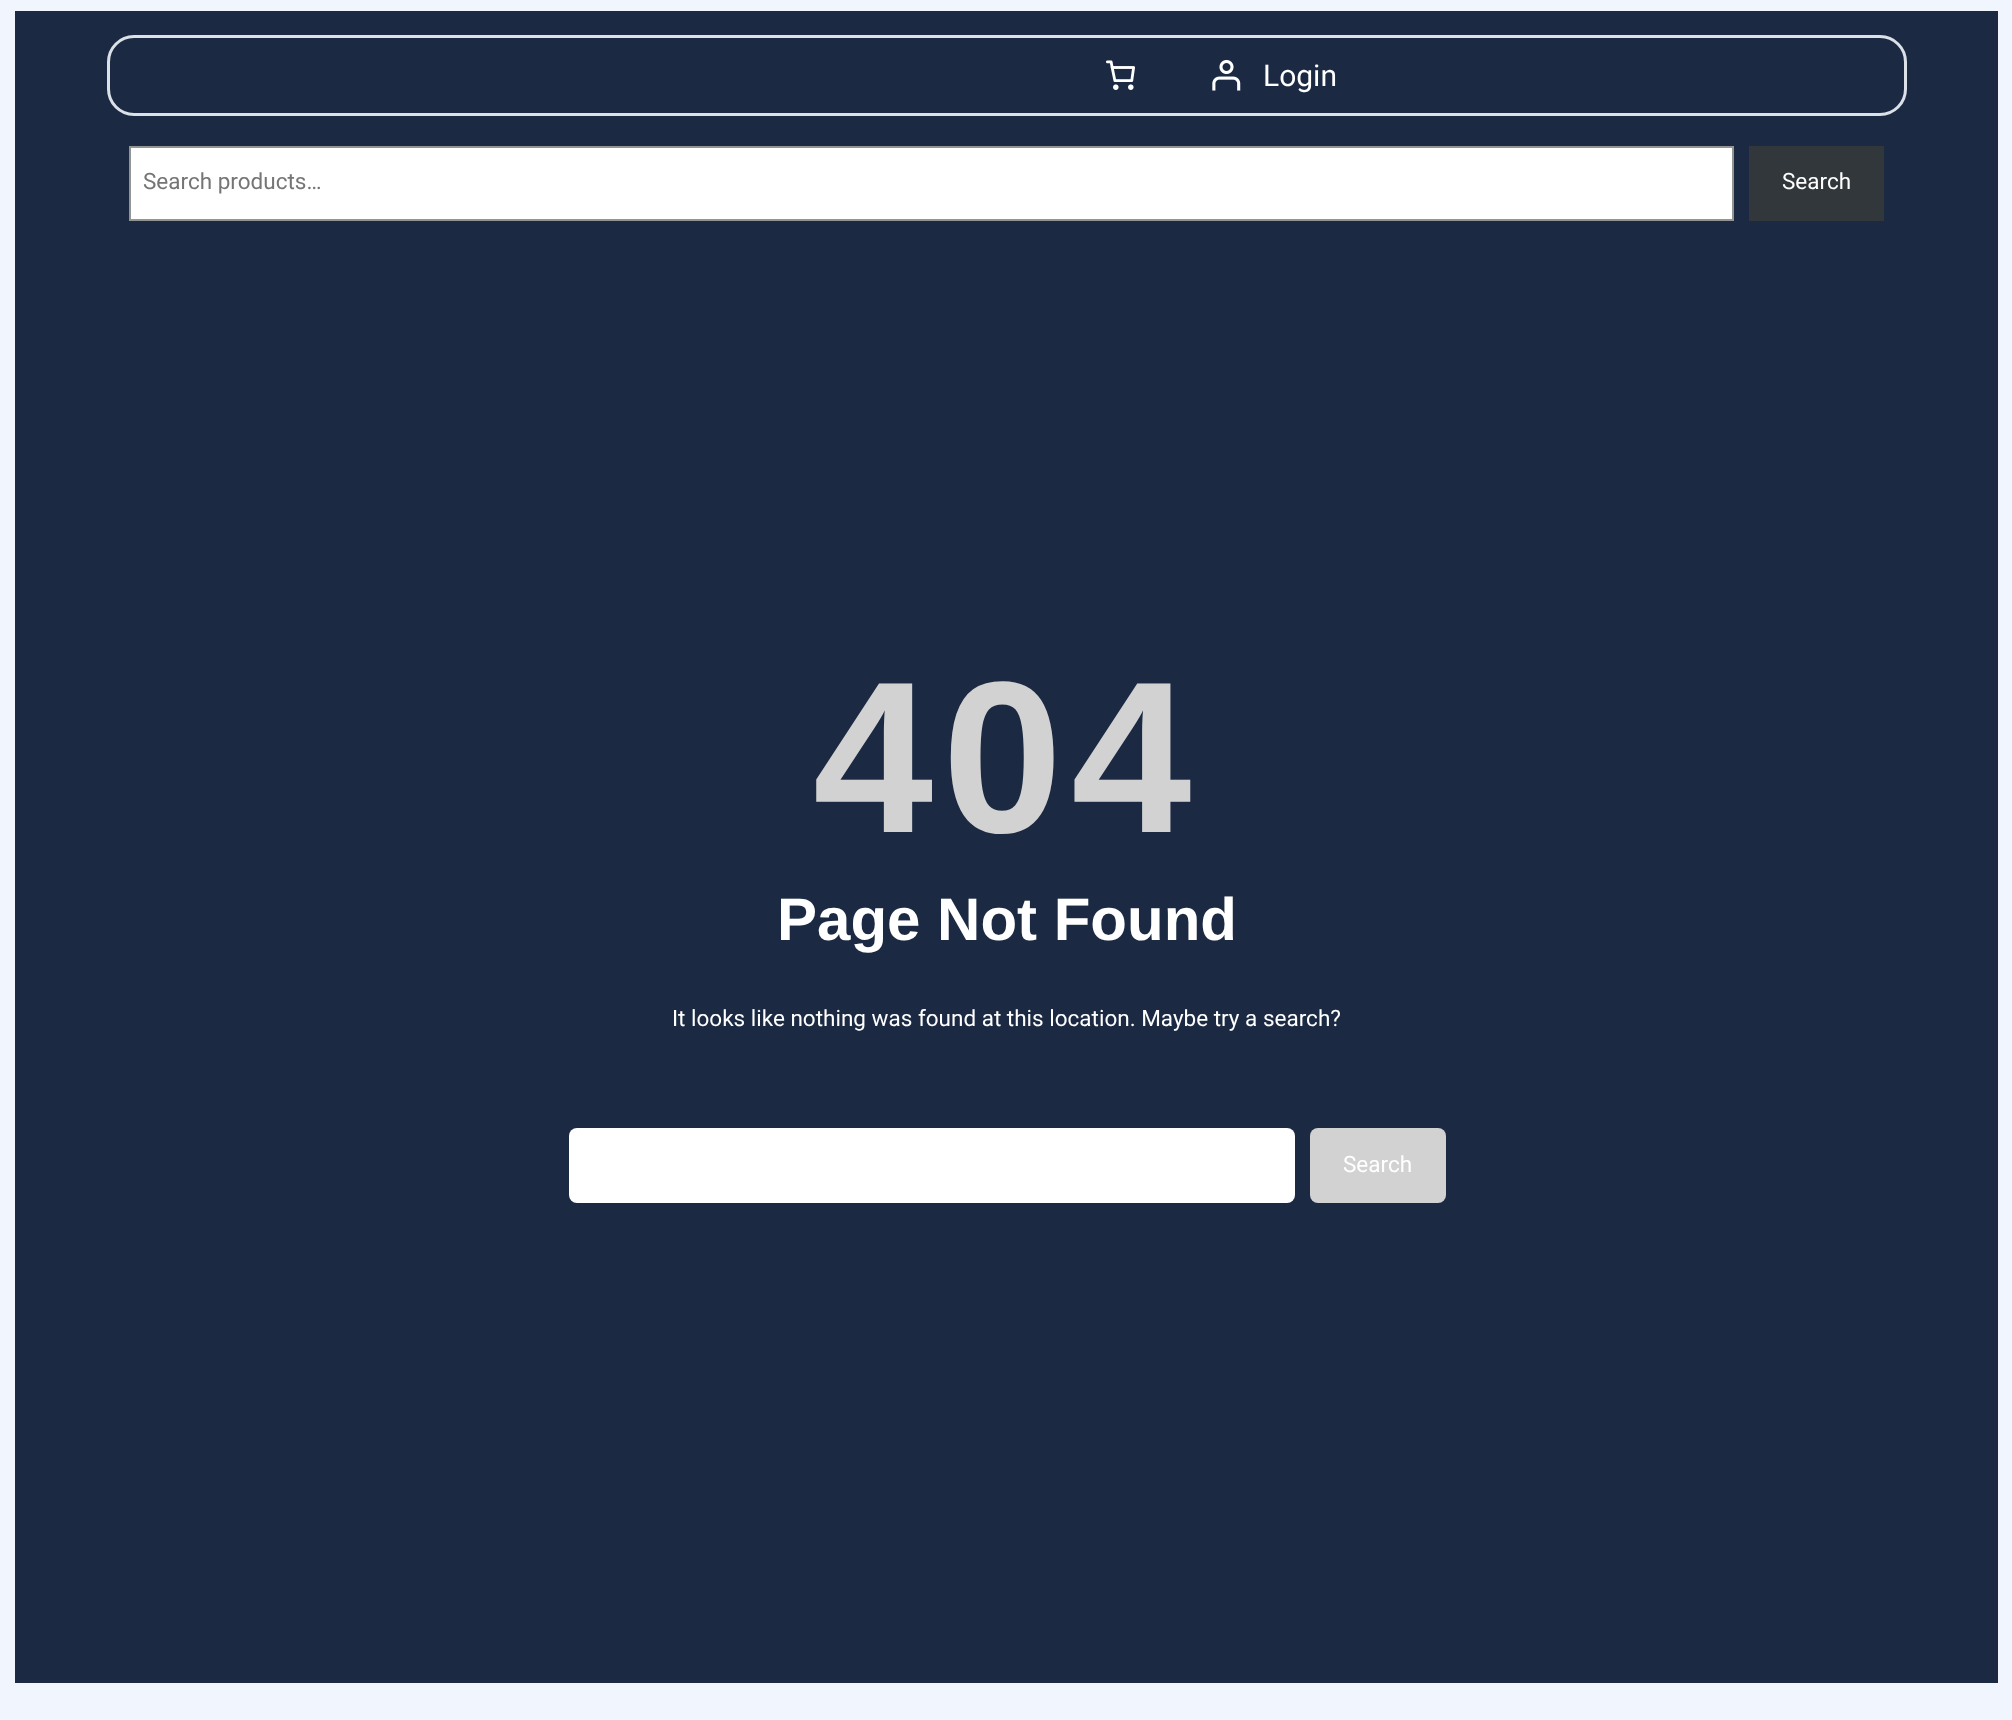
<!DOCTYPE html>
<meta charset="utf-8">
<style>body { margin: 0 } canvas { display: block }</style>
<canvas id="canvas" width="2012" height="1720"></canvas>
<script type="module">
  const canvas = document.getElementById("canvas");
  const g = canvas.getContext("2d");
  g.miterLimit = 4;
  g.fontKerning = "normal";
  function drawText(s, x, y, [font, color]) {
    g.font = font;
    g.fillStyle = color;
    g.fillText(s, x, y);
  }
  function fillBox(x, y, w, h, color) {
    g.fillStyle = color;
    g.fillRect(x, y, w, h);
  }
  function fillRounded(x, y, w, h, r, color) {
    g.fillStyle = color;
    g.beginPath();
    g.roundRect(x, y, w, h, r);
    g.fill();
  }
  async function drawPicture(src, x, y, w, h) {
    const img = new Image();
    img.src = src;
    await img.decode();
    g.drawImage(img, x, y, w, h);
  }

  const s1 = ["30px Roboto", "#FFFFFF"];
  const s2 = ["22.5px Roboto", "#757575"];
  const s3 = ["22.5px Roboto", "#FFFFFF"];
  const s4 = ["bold 216px Liberation Sans", "#D2D2D2"];
  const s5 = ["bold 60px Liberation Sans", "#FFFFFF"];

  fillBox(0, 0, 2012, 1720, "#F1F5FD");
  fillBox(15, 11, 1983, 1672, "#1B2A42");
  g.beginPath();
  g.roundRect(108.5, 36.5, 1797, 78, 25.5);
  g.strokeStyle = "#DBE0E9";
  g.lineWidth = 3;
  g.stroke();
  await drawPicture("pic1.png", 1106, 60, 29, 30);
  await drawPicture("pic2.png", 1212, 59, 29, 32);
  drawText("Login", 1263, 86, s1);
  g.beginPath();
  g.rect(130, 147, 1603, 73);
  g.fill();
  g.strokeStyle = "#949494";
  g.lineWidth = 2;
  g.stroke();
  drawText("Search products…", 143, 189, s2);
  fillBox(1749, 146, 135, 75, "#32373C");
  drawText("Search", 1782, 189, s3);
  g.letterSpacing = "9px";
  drawText("404", 813, 832, s4);
  g.letterSpacing = "0px";
  drawText("Page Not Found", 777, 940, s5);
  drawText("It looks like nothing was found at this location. Maybe try a search?", 672, 1026, s3);
  fillRounded(569, 1128, 726, 75, 8, "#FFFFFF");
  fillRounded(1310, 1128, 136, 75, 8, "#D2D2D2");
  drawText("Search", 1343, 1172, s3);
</script>
